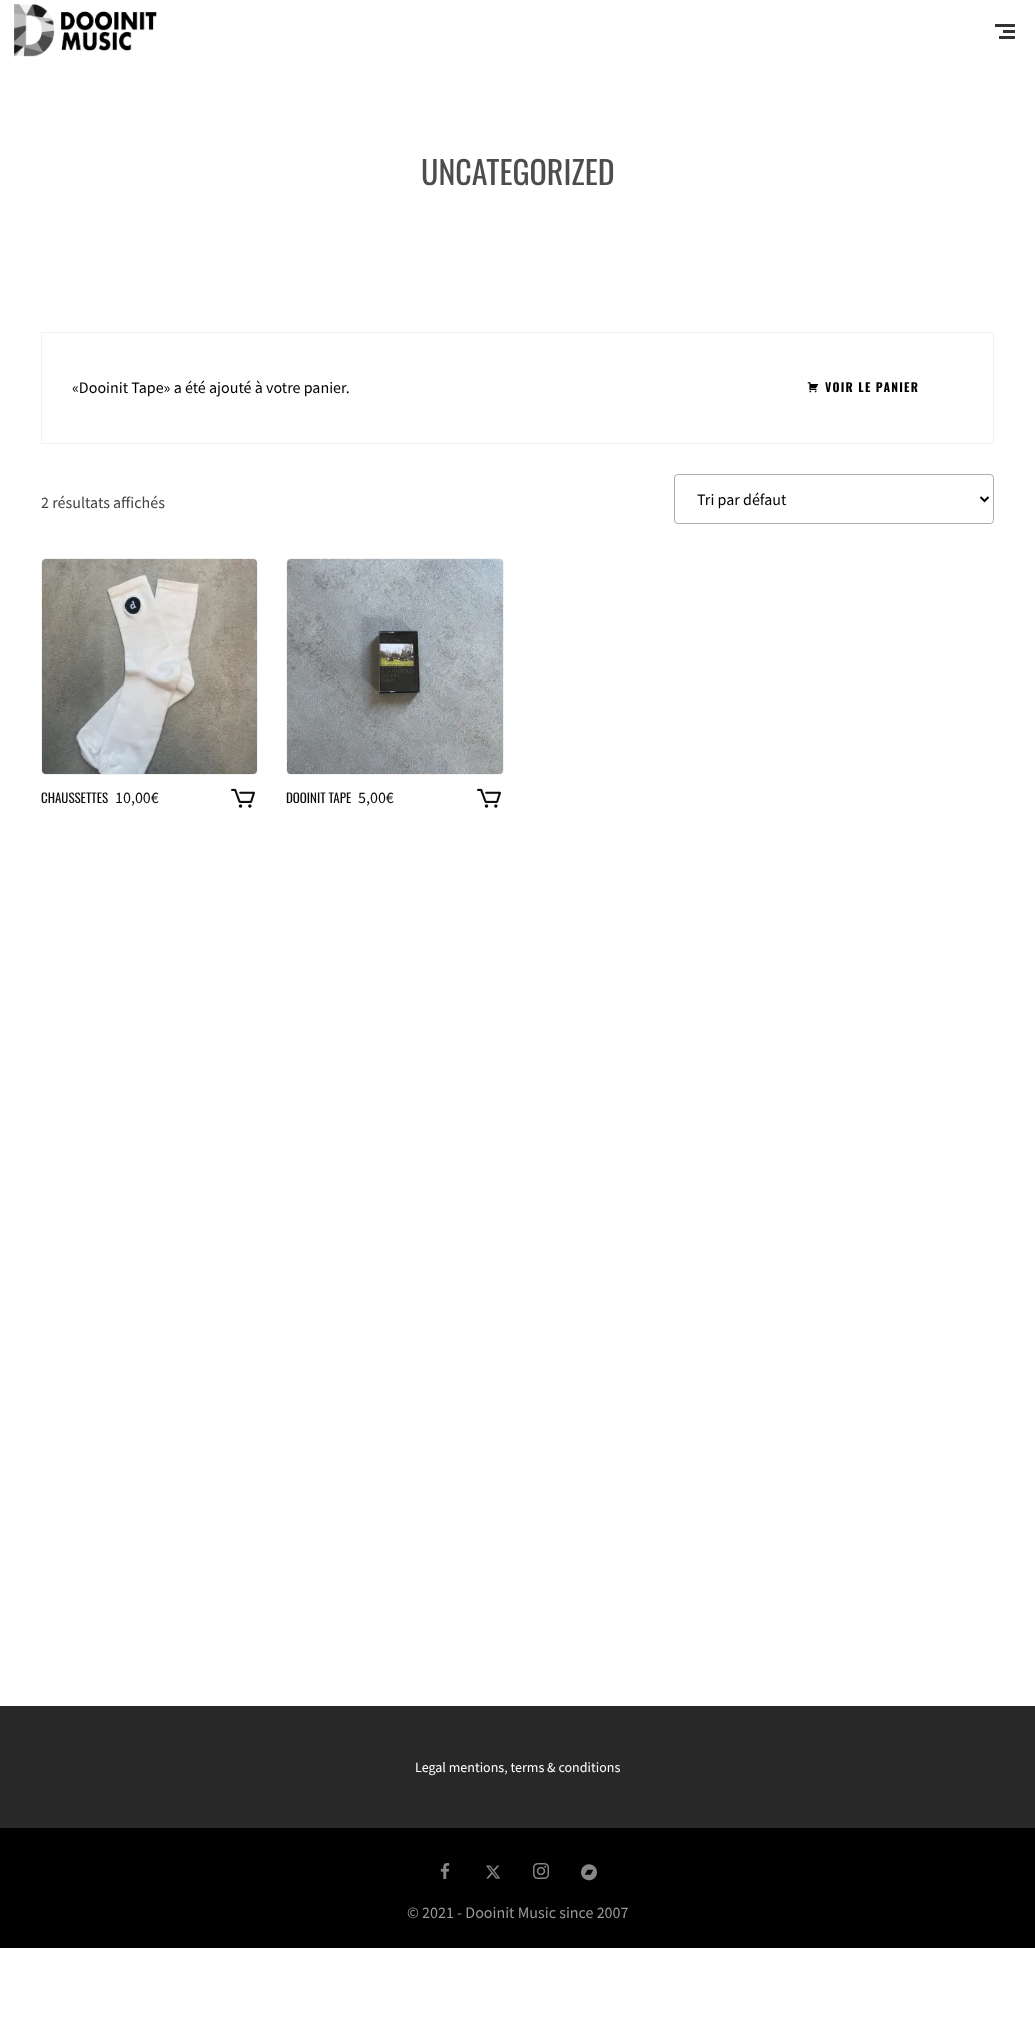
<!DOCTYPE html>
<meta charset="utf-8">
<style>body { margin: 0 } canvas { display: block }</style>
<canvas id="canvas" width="1035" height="2034"></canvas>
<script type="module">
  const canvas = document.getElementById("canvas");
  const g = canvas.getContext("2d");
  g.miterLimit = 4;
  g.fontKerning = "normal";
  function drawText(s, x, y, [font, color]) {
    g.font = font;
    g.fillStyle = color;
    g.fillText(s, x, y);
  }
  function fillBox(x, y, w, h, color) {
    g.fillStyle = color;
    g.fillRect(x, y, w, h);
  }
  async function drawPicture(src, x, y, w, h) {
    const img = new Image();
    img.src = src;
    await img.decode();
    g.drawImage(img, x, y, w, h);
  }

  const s1 = ["32px Oswald", "#4D4D4D"];
  const s2 = ["16px Source Sans Pro", "#000000"];
  const s3 = ["bold 12px Oswald", "#000000"];
  const s4 = ["16px Source Sans Pro", "#444444"];
  const s5 = ["13px Oswald", "#0D0D0D"];
  const s6 = ["16px Source Sans Pro", "#0D0D0D"];
  const s7 = ["14px Source Sans Pro", "#FFFFFF"];
  const s8 = ["16px Source Sans Pro", "#999999"];

  fillBox(0, 0, 1035, 2034, "#FFFFFF");
  await drawPicture("pic1.png", 14, 4, 143, 53);
  fillBox(995, 24, 20, 3, "#333333");
  fillBox(1003, 30, 12, 3, "#333333");
  fillBox(999, 36, 16, 3, "#333333");
  drawText("UNCATEGORIZED", 421, 185, s1);
  g.strokeStyle = "#F2F2F2";
  g.strokeRect(41.5, 332.5, 952, 111);
  drawText("«Dooinit Tape» a été ajouté à votre panier.", 72, 393, s2);
  await drawPicture("pic2.png", 807, 382, 12, 11);
  g.letterSpacing = "1.25px";
  drawText("VOIR LE PANIER", 825, 392, s3);
  g.letterSpacing = "0px";
  drawText("2 résultats affichés", 41, 508, s4);
  g.beginPath();
  g.roundRect(674.5, 474.5, 319, 49, 3.5);
  g.strokeStyle = "#ADADAD";
  g.stroke();
  g.beginPath();
  g.moveTo(980.5, 497);
  g.lineTo(984.5, 501);
  g.lineTo(988.5, 497);
  g.strokeStyle = "#000000";
  g.lineWidth = 2;
  g.stroke();
  drawText("Tri par défaut", 697, 505, s2);
  g.beginPath();
  g.roundRect(41.5, 558.5, 216, 216, 3.5);
  g.strokeStyle = "#F2F2F2";
  g.lineWidth = 1;
  g.stroke();
  await drawPicture("pic3.png", 42, 559, 215, 215);
  drawText("CHAUSSETTES", 41, 803, s5);
  drawText("10,00€", 115, 803, s6);
  await drawPicture("pic4.png", 231, 788, 24, 20);
  g.beginPath();
  g.roundRect(286.5, 558.5, 217, 216, 3.5);
  g.stroke();
  await drawPicture("pic5.png", 287, 559, 216, 215);
  drawText("DOOINIT TAPE", 286, 803, s5);
  drawText("5,00€", 358, 803, s6);
  await drawPicture("pic4.png", 477, 788, 24, 20);
  fillBox(0, 1706, 1035, 122, "#282828");
  drawText("Legal mentions, terms & conditions", 415, 1772, s7);
  fillBox(0, 1828, 1035, 120, "#000000");
  await drawPicture("pic6.png", 440, 1863, 10, 16);
  await drawPicture("pic7.png", 486, 1865, 15, 14);
  await drawPicture("pic8.png", 533, 1863, 16, 16);
  await drawPicture("pic9.png", 581, 1864, 16, 17);
  drawText("© 2021 - Dooinit Music since 2007", 407, 1918, s8);
</script>
